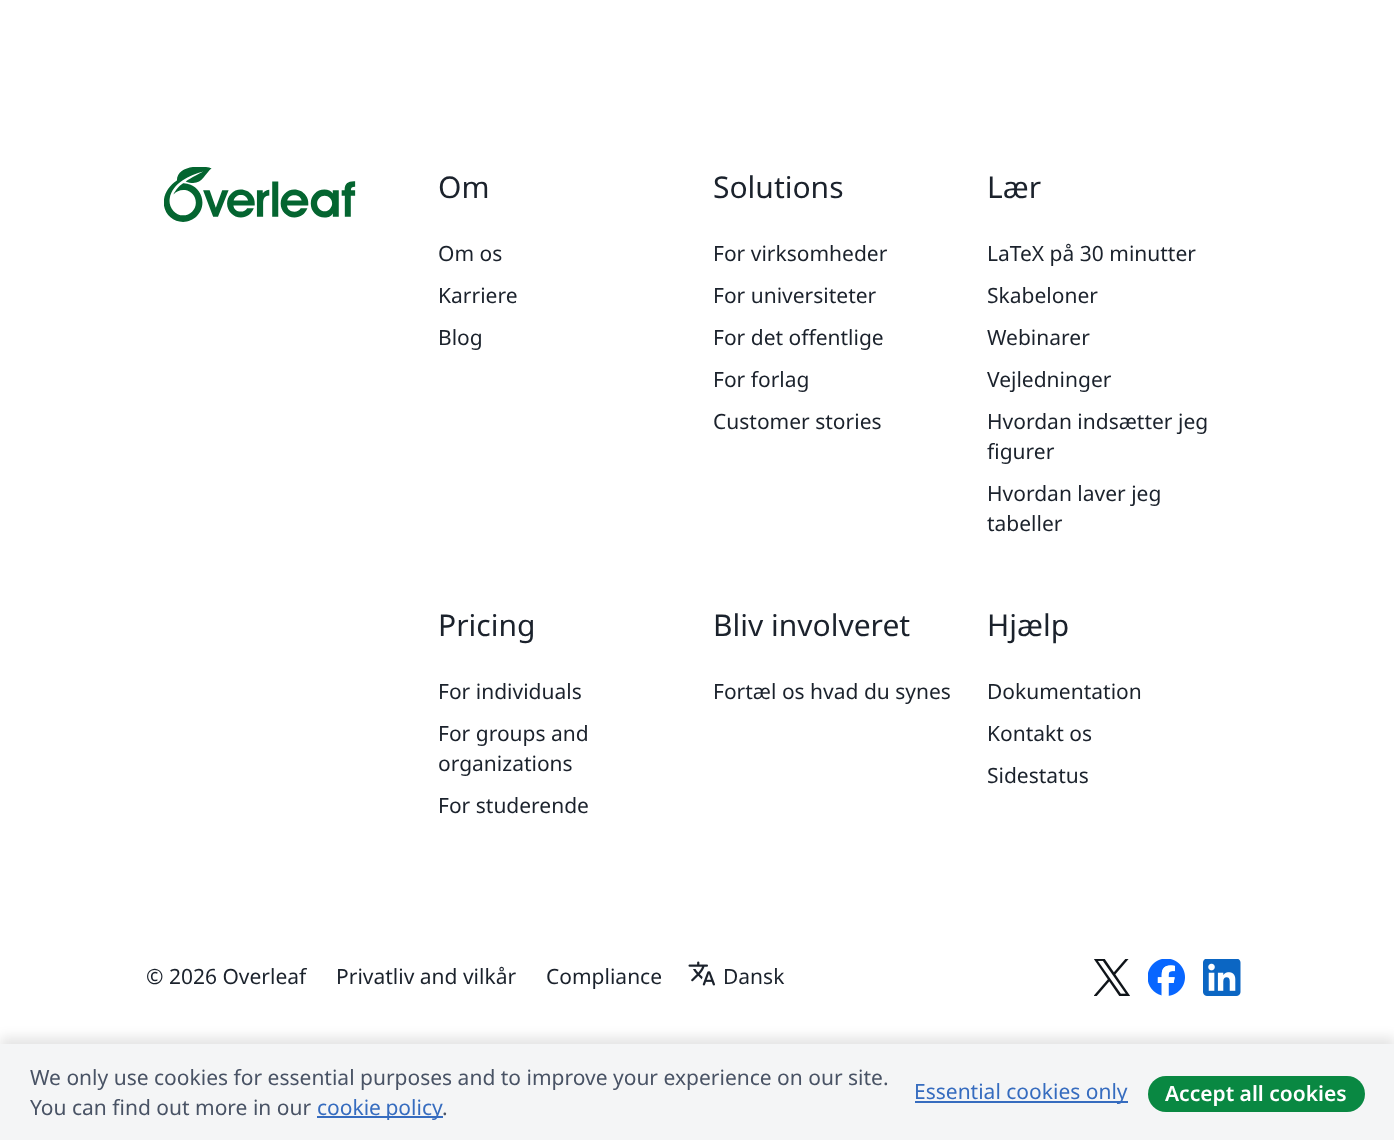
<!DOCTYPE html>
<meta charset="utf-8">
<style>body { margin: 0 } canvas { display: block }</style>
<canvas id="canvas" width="1394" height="1140"></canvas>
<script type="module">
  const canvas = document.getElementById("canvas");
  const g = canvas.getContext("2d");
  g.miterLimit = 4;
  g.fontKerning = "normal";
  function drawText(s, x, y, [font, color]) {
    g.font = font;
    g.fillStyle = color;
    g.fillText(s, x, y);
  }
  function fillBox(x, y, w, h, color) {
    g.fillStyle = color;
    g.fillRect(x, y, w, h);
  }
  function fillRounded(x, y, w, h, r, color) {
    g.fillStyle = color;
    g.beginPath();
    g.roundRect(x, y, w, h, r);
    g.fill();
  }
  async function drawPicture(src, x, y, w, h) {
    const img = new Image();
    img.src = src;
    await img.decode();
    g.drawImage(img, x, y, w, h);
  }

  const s1 = ["30px Noto Sans", "#1B222C"];
  const s2 = ["21px Noto Sans", "#1B222C"];
  const s3 = ["21px Noto Sans", "#495365"];
  const s4 = ["21px Noto Sans", "#366CBF"];
  const s5 = ["600 21px Noto Sans", "#FFFFFF"];

  fillBox(0, 0, 1394, 1140, "#FFFFFF");
  await drawPicture("pic1.png", 164, 167, 192, 55);
  drawText("Om", 438, 198, s1);
  drawText("Om os", 438, 261, s2);
  drawText("Karriere", 438, 303, s2);
  drawText("Blog", 438, 345, s2);
  drawText("Solutions", 713, 198, s1);
  drawText("For virksomheder", 713, 261, s2);
  drawText("For universiteter", 713, 303, s2);
  drawText("For det offentlige", 713, 345, s2);
  drawText("For forlag", 713, 387, s2);
  drawText("Customer stories", 713, 429, s2);
  drawText("Lær", 987, 198, s1);
  drawText("LaTeX på 30 minutter", 987, 261, s2);
  drawText("Skabeloner", 987, 303, s2);
  drawText("Webinarer", 987, 345, s2);
  drawText("Vejledninger", 987, 387, s2);
  drawText("Hvordan indsætter jeg", 987, 429, s2);
  drawText("figurer", 987, 459, s2);
  drawText("Hvordan laver jeg", 987, 501, s2);
  drawText("tabeller", 987, 531, s2);
  drawText("Pricing", 438, 636, s1);
  drawText("For individuals", 438, 699, s2);
  drawText("For groups and", 438, 741, s2);
  drawText("organizations", 438, 771, s2);
  drawText("For studerende", 438, 813, s2);
  drawText("Bliv involveret", 713, 636, s1);
  drawText("Fortæl os hvad du synes", 713, 699, s2);
  drawText("Hjælp", 987, 636, s1);
  drawText("Dokumentation", 987, 699, s2);
  drawText("Kontakt os", 987, 741, s2);
  drawText("Sidestatus", 987, 783, s2);
  drawText("© 2026 Overleaf", 146, 984, s2);
  drawText("Privatliv and vilkår", 336, 984, s2);
  drawText("Compliance", 546, 984, s2);
  await drawPicture("pic2.png", 688, 961, 27, 25);
  drawText("Dansk", 723, 984, s2);
  await drawPicture("pic3.png", 1094, 959, 36, 37);
  await drawPicture("pic4.png", 1148, 959, 37, 37);
  await drawPicture("pic5.png", 1203, 959, 38, 37);
  g.fillStyle = "rgba(0, 0, 0, 0.1)";
  g.filter = "blur(6px)";
  g.beginPath();
  g.rect(0, 1037, 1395, 96);
  g.fill();
  g.filter = "none";
  fillBox(0, 1044, 1394, 96, "#F4F5F6");
  drawText("We only use cookies for essential purposes and to improve your experience on our site.", 30, 1085, s3);
  drawText("You can find out more in our", 30, 1115, s3);
  fillBox(317, 1116, 126, 2, "#366CBF");
  g.wordSpacing = "-1px";
  drawText("cookie policy", 317, 1115, s4);
  g.wordSpacing = "0px";
  drawText(".", 442, 1115, s3);
  fillBox(915, 1101, 213, 2, "#366CBF");
  drawText("Essential cookies only", 914, 1099, s4);
  fillRounded(1148, 1076, 217, 36, 18, "#098842");
  drawText("Accept all cookies", 1165, 1101, s5);
</script>
